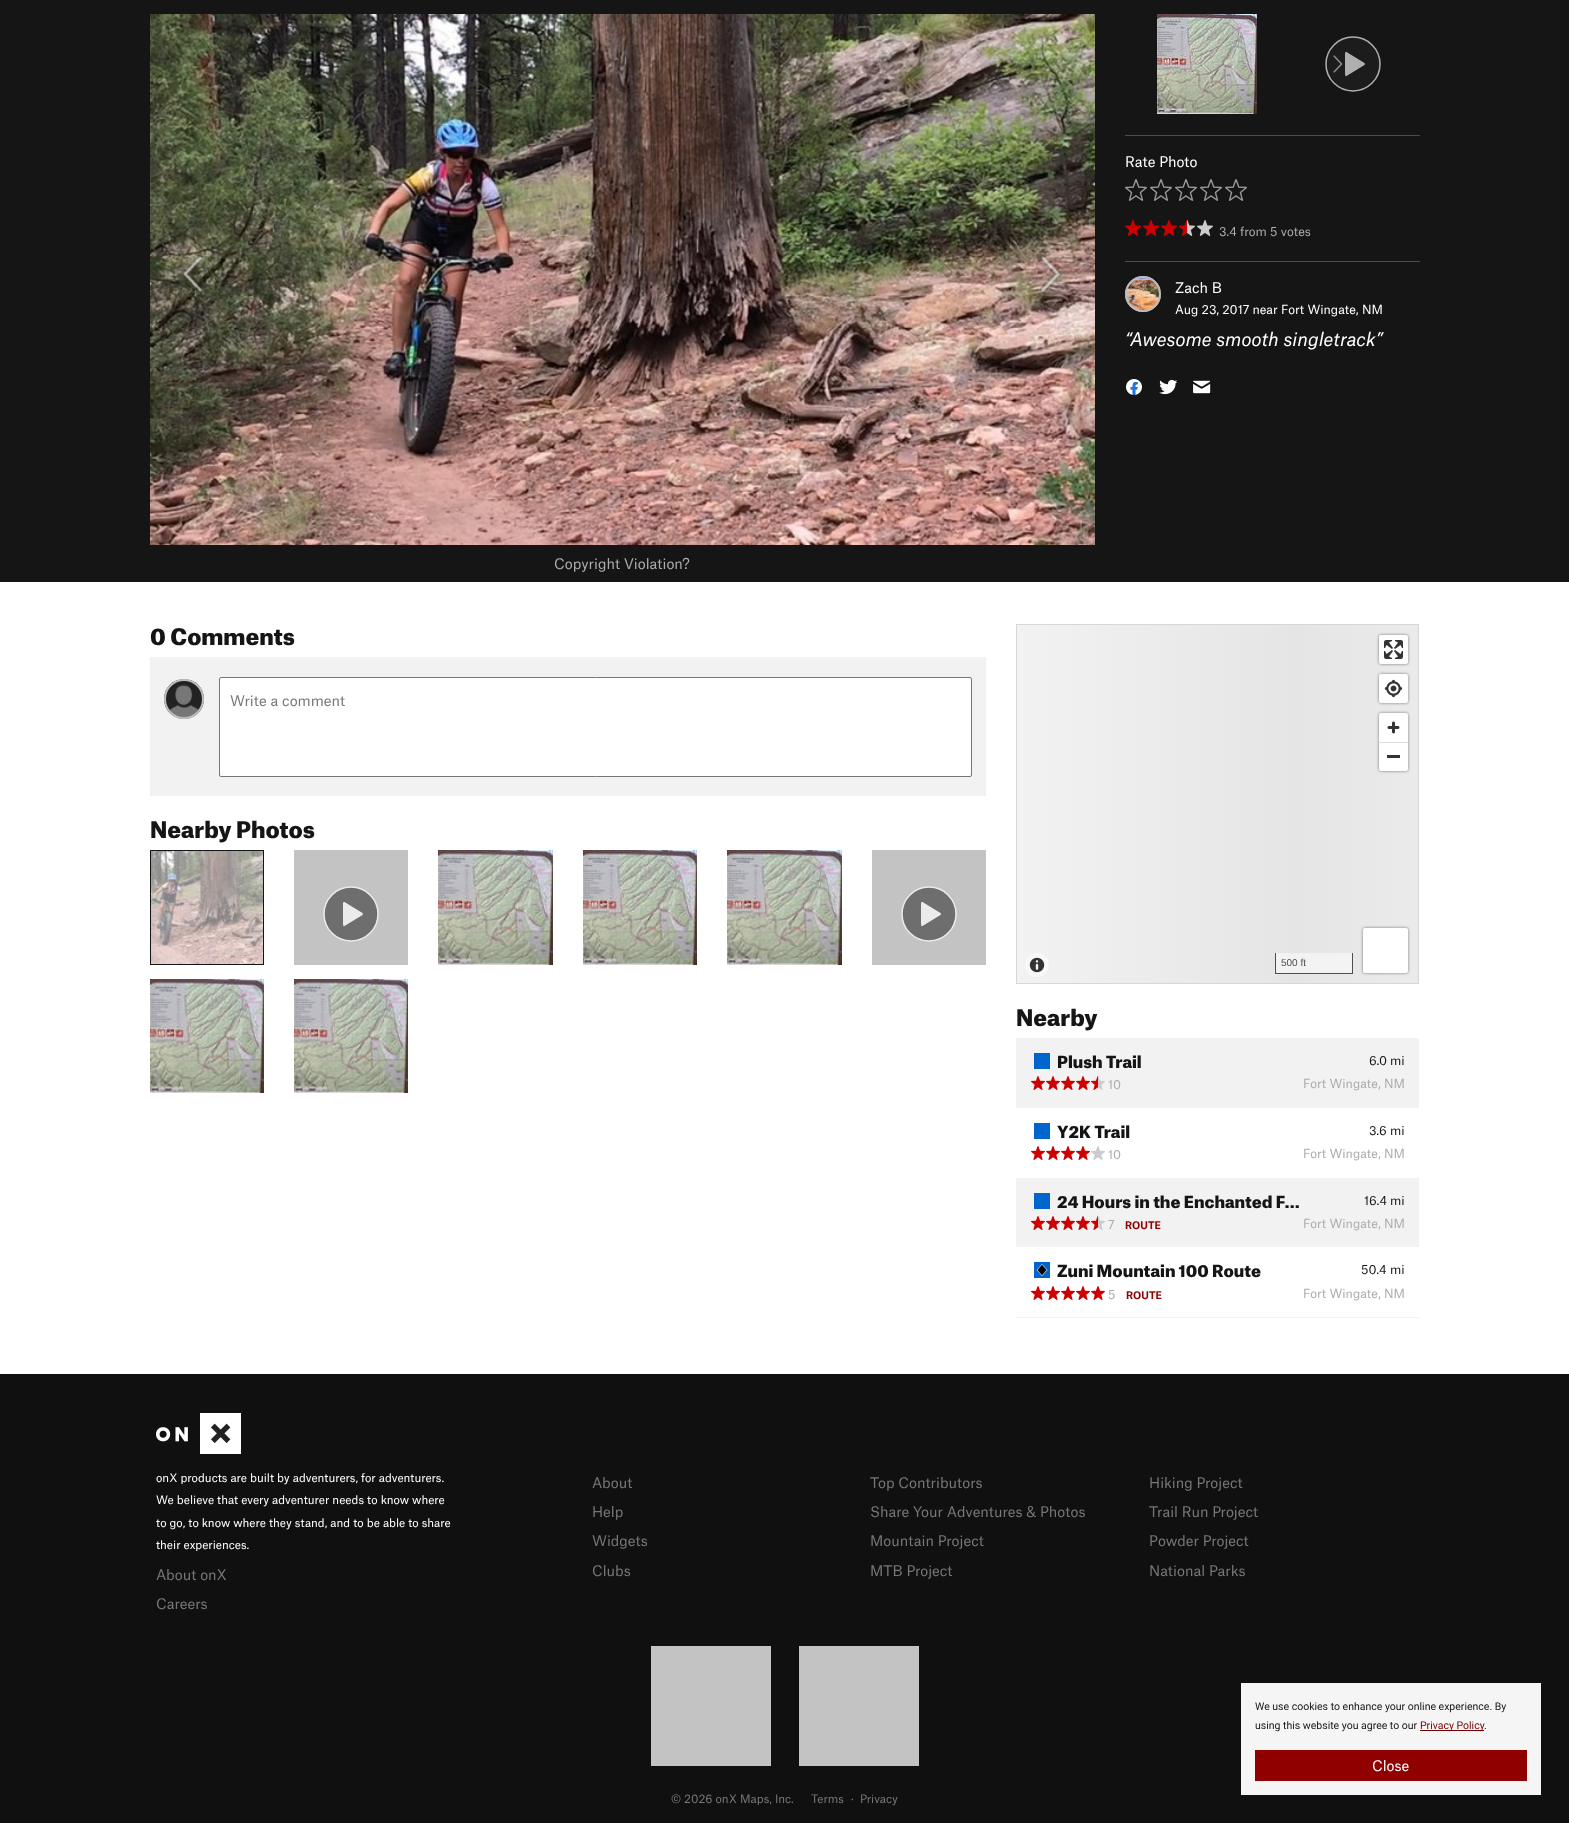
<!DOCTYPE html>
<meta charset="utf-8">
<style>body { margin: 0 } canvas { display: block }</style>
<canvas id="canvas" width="1569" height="1823"></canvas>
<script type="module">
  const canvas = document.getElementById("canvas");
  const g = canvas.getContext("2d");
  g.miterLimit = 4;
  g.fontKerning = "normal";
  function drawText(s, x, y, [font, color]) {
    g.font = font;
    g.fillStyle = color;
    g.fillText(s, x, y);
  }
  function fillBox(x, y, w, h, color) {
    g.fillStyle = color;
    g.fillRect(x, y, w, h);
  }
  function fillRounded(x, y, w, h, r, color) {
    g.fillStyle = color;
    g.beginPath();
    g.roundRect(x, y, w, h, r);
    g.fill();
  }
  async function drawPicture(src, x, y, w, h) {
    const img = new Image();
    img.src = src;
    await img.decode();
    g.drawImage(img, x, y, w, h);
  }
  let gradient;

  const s1 = ["14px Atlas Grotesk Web", "#FFFFFF"];
  const s2 = ["12px Atlas Grotesk Web", "#ACACAC"];
  const s3 = ["12px Atlas Grotesk Web", "#FFFFFF"];
  const s4 = ["italic 18px Atlas Grotesk Web", "#FFFFFF"];
  const s5 = ["14px Atlas Grotesk Web", "#ACACAC"];
  const s6 = ["900 22px Atlas Grotesk Web", "#151515"];
  const s7 = ["14px Atlas Grotesk Web", "#777777"];
  const s8 = ["10px Liberation Sans", "#4E4D49"];
  const s9 = ["900 16px Atlas Grotesk Web", "#151515"];
  const s10 = ["12px Atlas Grotesk Web", "#151515"];
  const s11 = ["bold 10px Atlas Grotesk Web", "#900000"];
  const s12 = ["11.2px Atlas Grotesk Web", "#FFFFFF"];
  const s13 = ["11.2px Atlas Grotesk Web", "#777777"];
  const s14 = ["10.5px Roboto", "#151515"];
  const s15 = ["10.5px Roboto", "#710100"];

  fillBox(0, 0, 1569, 1823, "#FFFFFF");
  fillBox(0, 0, 1569, 582, "#151515");
  await drawPicture("pic1.png", 1157, 14, 100, 100);
  await drawPicture("pic2.png", 1200, 54, 12, 20);
  g.fillStyle = "#1C1C1C";
  g.beginPath();
  g.arc(1353, 64, 27, 0, Math.PI * 2);
  g.fill();
  g.strokeStyle = "#AFAFAF";
  g.lineWidth = 1.5;
  g.stroke();
  g.fillStyle = "#AFAFAF";
  g.beginPath();
  g.moveTo(1365, 64);
  g.lineTo(1364.5, 63);
  g.lineTo(1346.5, 52);
  g.bezierCurveTo(1346, 52, 1345, 52, 1345, 53);
  g.lineTo(1345, 71.5);
  g.bezierCurveTo(1345, 74, 1345, 77, 1346.5, 76);
  g.lineTo(1364.5, 65);
  g.lineTo(1365, 64);
  g.fill("evenodd");
  await drawPicture("pic3.png", 1333, 55, 10, 18);
  fillBox(1125, 135, 295, 1, "#4E4D49");
  drawText("Rate Photo", 1125, 167, s1);
  await drawPicture("pic4.png", 1125, 179, 22, 22);
  await drawPicture("pic4.png", 1150, 179, 22, 22);
  await drawPicture("pic4.png", 1175, 179, 22, 22);
  await drawPicture("pic4.png", 1200, 179, 22, 22);
  await drawPicture("pic4.png", 1225, 179, 22, 22);
  await drawPicture("pic5.png", 1125, 220, 16, 16);
  await drawPicture("pic5.png", 1143, 220, 16, 16);
  await drawPicture("pic5.png", 1161, 220, 16, 16);
  await drawPicture("pic6.png", 1179, 220, 16, 16);
  await drawPicture("pic7.png", 1197, 220, 16, 16);
  drawText("3.4 from 5 votes", 1219, 236, s2);
  fillBox(1125, 261, 295, 1, "#4E4D49");
  await drawPicture("pic8.png", 1125, 276, 36, 36);
  g.beginPath();
  g.arc(1143, 294, 17, 0, Math.PI * 2);
  g.strokeStyle = "#BDBDBD";
  g.lineWidth = 2;
  g.stroke();
  drawText("Zach B", 1175, 293, s1);
  drawText("Aug 23, 2017 near Fort Wingate, NM", 1175, 314, s3);
  drawText("“", 1125, 346, s4);
  drawText("Awesome smooth singletrack”", 1130, 346, s4);
  await drawPicture("pic9.png", 1126, 379, 16, 16);
  await drawPicture("pic10.png", 1159, 379, 18, 16);
  await drawPicture("pic11.png", 1193, 380, 18, 14);
  await drawPicture("pic12.png", 150, 14, 945, 531);
  await drawPicture("pic13.png", 181, 254, 23, 39);
  await drawPicture("pic14.png", 1039, 254, 23, 40);
  drawText("Copyright Violation?", 554, 569, s5);
  drawText("0 Comments", 150, 645, s6);
  fillBox(150, 657, 836, 139, "#F2F2F2");
  await drawPicture("pic15.png", 164, 679, 40, 40);
  g.beginPath();
  g.arc(184, 699, 19, 0, Math.PI * 2);
  g.stroke();
  g.fillStyle = "#FFFFFF";
  g.beginPath();
  g.roundRect(219.5, 677.5, 752, 99, 1.5);
  g.fill();
  g.strokeStyle = "#767676";
  g.lineWidth = 1;
  g.stroke();
  drawText("Write a comment", 230, 706, s7);
  drawText("Nearby Photos", 150, 838, s6);
  g.strokeStyle = "#151515";
  g.strokeRect(150.5, 850.5, 113, 114);
  await drawPicture("pic16.png", 151, 851, 112, 113);
  fillBox(294, 850, 114, 115, "#C3C3C3");
  g.fillStyle = "#6E6E6E";
  g.beginPath();
  g.arc(351, 914, 27, 0, Math.PI * 2);
  g.fill();
  g.strokeStyle = "#EBEBEB";
  g.lineWidth = 1.5;
  g.stroke();
  g.fillStyle = "#EBEBEB";
  g.beginPath();
  g.moveTo(363, 914);
  g.lineTo(362.5, 913);
  g.lineTo(344.5, 902);
  g.bezierCurveTo(344, 902, 343, 902, 343, 903);
  g.lineTo(343, 921.5);
  g.bezierCurveTo(343, 924, 343, 927, 344.5, 926);
  g.lineTo(362.5, 915);
  g.lineTo(363, 914);
  g.fill("evenodd");
  await drawPicture("pic17.png", 438, 850, 115, 115);
  await drawPicture("pic18.png", 583, 850, 114, 115);
  await drawPicture("pic17.png", 727, 850, 115, 115);
  fillBox(872, 850, 114, 115, "#C3C3C3");
  g.fillStyle = "#6E6E6E";
  g.beginPath();
  g.arc(929, 914, 27, 0, Math.PI * 2);
  g.fill();
  g.stroke();
  g.fillStyle = "#EBEBEB";
  g.beginPath();
  g.moveTo(941, 914);
  g.lineTo(940.5, 913);
  g.lineTo(922.5, 902);
  g.bezierCurveTo(922, 902, 921, 902, 921, 903);
  g.lineTo(921, 921.5);
  g.bezierCurveTo(921, 924, 921, 927, 922.5, 926);
  g.lineTo(940.5, 915);
  g.lineTo(941, 914);
  g.fill("evenodd");
  await drawPicture("pic19.png", 150, 979, 114, 114);
  await drawPicture("pic20.png", 294, 979, 114, 114);
  gradient = g.createLinearGradient(1017, 804, 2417, 804);
  gradient.addColorStop(0, "#F2F2F2");
  gradient.addColorStop(0.2, "#E5E5E5");
  gradient.addColorStop(0.4, "#F2F2F2");
  gradient.addColorStop(1, "#F2F2F2");
  g.fillStyle = gradient;
  g.fillRect(1017, 625, 401, 358);
  gradient = g.createLinearGradient(1017, 804, 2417, 804);
  gradient.addColorStop(0, "#F9F9F9");
  gradient.addColorStop(0.2, "#F2F2F2");
  gradient.addColorStop(0.4, "#F9F9F9");
  gradient.addColorStop(1, "#F9F9F9");
  g.fillStyle = gradient;
  g.fillRect(1276, 953, 76, 20);
  g.strokeStyle = "#D7D7D7";
  g.lineWidth = 1;
  g.strokeRect(1016.5, 624.5, 402, 359);
  g.fillStyle = "#F8F8F8";
  g.beginPath();
  g.arc(1037, 965, 12, 0, Math.PI * 2);
  g.fill();
  await drawPicture("pic21.png", 1029, 957, 16, 16);
  g.fillStyle = "rgba(0, 0, 0, 0.5)";
  g.filter = "blur(1.5px)";
  g.beginPath();
  g.roundRect(1379, 635, 29, 29, 2);
  g.fill();
  g.filter = "none";
  fillRounded(1379, 635, 29, 29, 2, "#FFFFFF");
  await drawPicture("pic22.png", 1384, 640, 19, 19);
  g.fillStyle = "rgba(0, 0, 0, 0.5)";
  g.filter = "blur(1.5px)";
  g.beginPath();
  g.roundRect(1379, 674, 29, 29, 2);
  g.fill();
  g.filter = "none";
  fillRounded(1379, 674, 29, 29, 2, "#FFFFFF");
  await drawPicture("pic23.png", 1384, 679, 19, 19);
  g.fillStyle = "rgba(0, 0, 0, 0.5)";
  g.filter = "blur(1.5px)";
  g.beginPath();
  g.roundRect(1379, 713, 29, 58, 2);
  g.fill();
  g.filter = "none";
  fillRounded(1379, 713, 29, 58, 2, "#FFFFFF");
  await drawPicture("pic24.png", 1387, 721, 13, 13);
  fillBox(1379, 742, 29, 1, "#DDDDDD");
  fillBox(1387, 755, 13, 3, "#333333");
  fillBox(1352, 953, 1, 21, "#4E4D49");
  fillBox(1275, 973, 78, 1, "#4E4D49");
  fillBox(1275, 953, 1, 21, "#4E4D49");
  drawText("500 ft", 1281, 966, s8);
  g.fillStyle = "rgba(0, 0, 0, 0.5)";
  g.filter = "blur(1.5px)";
  g.beginPath();
  g.roundRect(1363, 928, 45, 45, 2);
  g.fill();
  g.filter = "none";
  fillRounded(1363, 928, 45, 45, 2, "#FFFFFF");
  drawText("Nearby", 1016, 1026, s6);
  fillBox(1016, 1317, 403, 1, "#F2F2F2");
  fillBox(1016, 1038, 403, 70, "#F2F2F2");
  drawText("Plush Trail", 1057, 1068, s9);
  fillBox(1034, 1053, 16, 16, "#0066CC");
  drawText("6.0", 1369, 1065, s10);
  drawText("mi", 1390, 1065, s10);
  await drawPicture("pic25.png", 1031, 1076, 14, 14);
  await drawPicture("pic25.png", 1046, 1076, 14, 14);
  await drawPicture("pic25.png", 1061, 1076, 14, 14);
  await drawPicture("pic25.png", 1076, 1076, 14, 14);
  await drawPicture("pic26.png", 1091, 1076, 14, 14);
  drawText("10", 1108, 1089, s2);
  drawText("Fort Wingate, NM", 1303, 1088, s2);
  drawText("Y2K Trail", 1057, 1138, s9);
  fillBox(1034, 1123, 16, 16, "#0066CC");
  drawText("3.6", 1369, 1135, s10);
  drawText("mi", 1390, 1135, s10);
  await drawPicture("pic27.png", 1031, 1146, 14, 14);
  await drawPicture("pic27.png", 1046, 1146, 14, 14);
  await drawPicture("pic27.png", 1061, 1146, 14, 14);
  await drawPicture("pic27.png", 1076, 1146, 14, 14);
  await drawPicture("pic28.png", 1091, 1146, 14, 14);
  drawText("10", 1108, 1159, s2);
  drawText("Fort Wingate, NM", 1303, 1158, s2);
  fillBox(1016, 1178, 403, 69, "#F2F2F2");
  drawText("24 Hours in the Enchanted F…", 1057, 1208, s9);
  fillBox(1034, 1193, 16, 16, "#0066CC");
  drawText("16.4", 1364, 1205, s10);
  drawText("mi", 1390, 1205, s10);
  await drawPicture("pic25.png", 1031, 1216, 14, 14);
  await drawPicture("pic25.png", 1046, 1216, 14, 14);
  await drawPicture("pic25.png", 1061, 1216, 14, 14);
  await drawPicture("pic25.png", 1076, 1216, 14, 14);
  await drawPicture("pic26.png", 1091, 1216, 14, 14);
  drawText("7", 1108, 1229, s2);
  drawText("ROUTE", 1125, 1229, s11);
  drawText("Fort Wingate, NM", 1303, 1228, s2);
  await drawPicture("pic29.png", 1034, 1262, 16, 16);
  drawText("Zuni Mountain 100 Route", 1057, 1277, s9);
  drawText("50.4", 1361, 1274, s10);
  drawText("mi", 1390, 1274, s10);
  await drawPicture("pic27.png", 1031, 1286, 14, 14);
  await drawPicture("pic27.png", 1046, 1286, 14, 14);
  await drawPicture("pic27.png", 1061, 1286, 14, 14);
  await drawPicture("pic27.png", 1076, 1286, 14, 14);
  await drawPicture("pic27.png", 1091, 1286, 14, 14);
  drawText("5", 1108, 1299, s2);
  drawText("ROUTE", 1126, 1299, s11);
  drawText("Fort Wingate, NM", 1303, 1298, s2);
  fillBox(0, 1374, 1569, 449, "#101010");
  await drawPicture("pic30.png", 156, 1413, 85, 41);
  drawText("onX products are built by adventurers, for adventurers.", 156, 1482, s12);
  drawText("We believe that every adventurer needs to know where", 156, 1504, s12);
  drawText("to go, to know where they stand, and to be able to share", 156, 1527, s12);
  drawText("their experiences.", 156, 1549, s12);
  drawText("About onX", 156, 1580, s7);
  drawText("Careers", 156, 1609, s7);
  drawText("About", 592, 1488, s7);
  drawText("Top Contributors", 870, 1488, s7);
  drawText("Hiking Project", 1149, 1488, s7);
  drawText("Help", 592, 1517, s7);
  drawText("Share Your Adventures & Photos", 870, 1517, s7);
  drawText("Trail Run Project", 1149, 1517, s7);
  drawText("Widgets", 592, 1546, s7);
  drawText("Mountain Project", 870, 1546, s7);
  drawText("Powder Project", 1149, 1546, s7);
  drawText("Clubs", 592, 1576, s7);
  drawText("MTB Project", 870, 1576, s7);
  drawText("National Parks", 1149, 1576, s7);
  fillBox(651, 1646, 120, 120, "#C3C3C3");
  fillBox(799, 1646, 120, 120, "#C3C3C3");
  drawText("© 2026 onX Maps, Inc.", 671, 1803, s13);
  drawText("Terms", 811, 1803, s13);
  drawText("·", 851, 1803, s13);
  drawText("Privacy", 860, 1803, s13);
  fillBox(1241, 1683, 300, 112, "#F5F5F5");
  drawText("We use cookies to enhance your online experience. By", 1255, 1710, s14);
  drawText("using this website you agree to our", 1255, 1729, s14);
  fillBox(1420, 1730, 64, 1, "#710100");
  drawText("Privacy Policy", 1420, 1729, s15);
  drawText(".", 1484, 1729, s14);
  fillBox(1255, 1750, 272, 31, "#900000");
  drawText("Close", 1372, 1771, s1);
</script>
